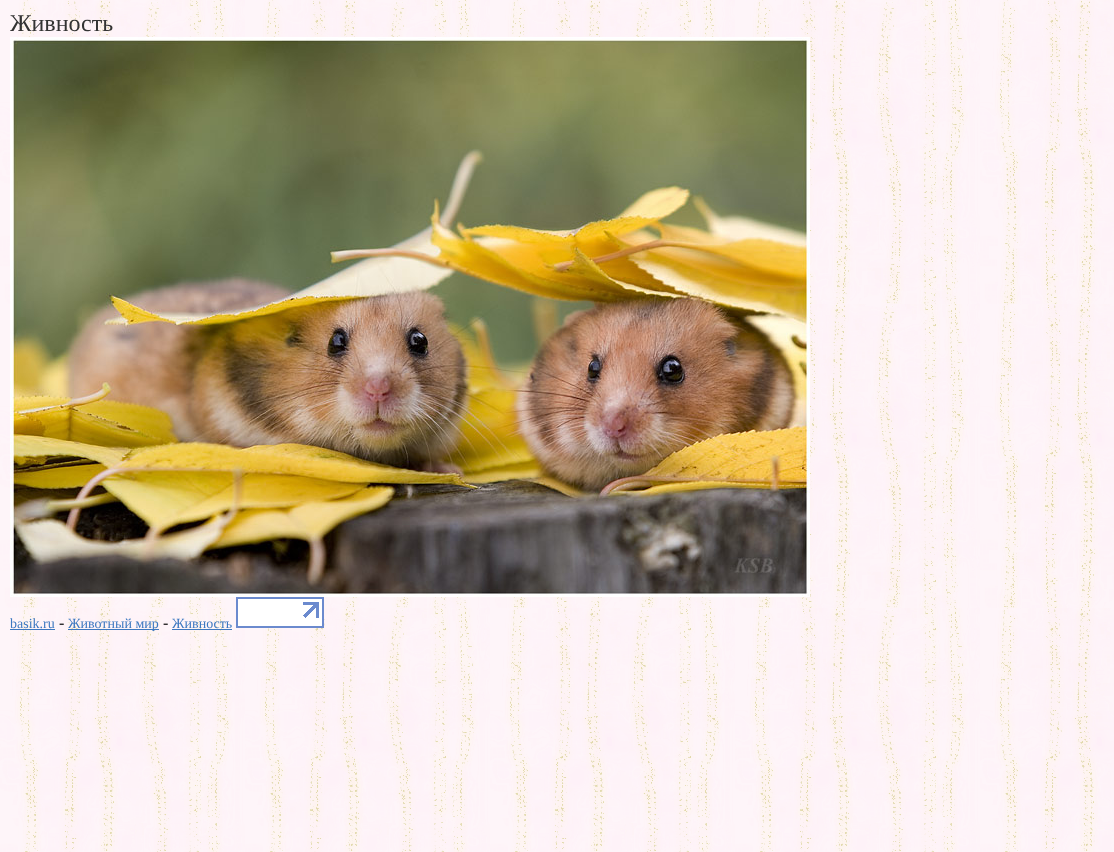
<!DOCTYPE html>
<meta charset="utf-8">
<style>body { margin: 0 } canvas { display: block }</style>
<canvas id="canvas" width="1114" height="852"></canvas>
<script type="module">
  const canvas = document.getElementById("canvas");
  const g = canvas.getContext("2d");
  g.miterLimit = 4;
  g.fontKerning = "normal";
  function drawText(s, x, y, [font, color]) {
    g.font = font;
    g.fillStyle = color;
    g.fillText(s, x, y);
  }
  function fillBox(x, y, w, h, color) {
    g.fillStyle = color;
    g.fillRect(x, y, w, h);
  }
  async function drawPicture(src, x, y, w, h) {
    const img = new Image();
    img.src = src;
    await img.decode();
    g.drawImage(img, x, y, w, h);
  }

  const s1 = ["24px Liberation Serif", "#333333"];
  const s2 = ["14px Liberation Serif", "#3D78C0"];
  const s3 = ["16px Liberation Serif", "#000000"];

  fillBox(0, 0, 1114, 852, "#FFFFFF");
  await drawPicture("pic1.png", 0, 0, 1114, 852);
  drawText("Живность", 10, 31, s1);
  await drawPicture("pic2.png", 10, 37, 800, 560);
  drawText("basik.ru", 10, 628, s2);
  fillBox(10, 629, 45, 1, "#3D78C0");
  drawText("-", 59, 628, s3);
  fillBox(68, 629, 91, 1, "#3D78C0");
  drawText("Животный мир", 68, 628, s2);
  drawText("-", 163, 628, s3);
  drawText("Живность", 172, 628, s2);
  fillBox(172, 629, 60, 1, "#3D78C0");
  await drawPicture("pic3.png", 236, 597, 88, 31);
</script>
